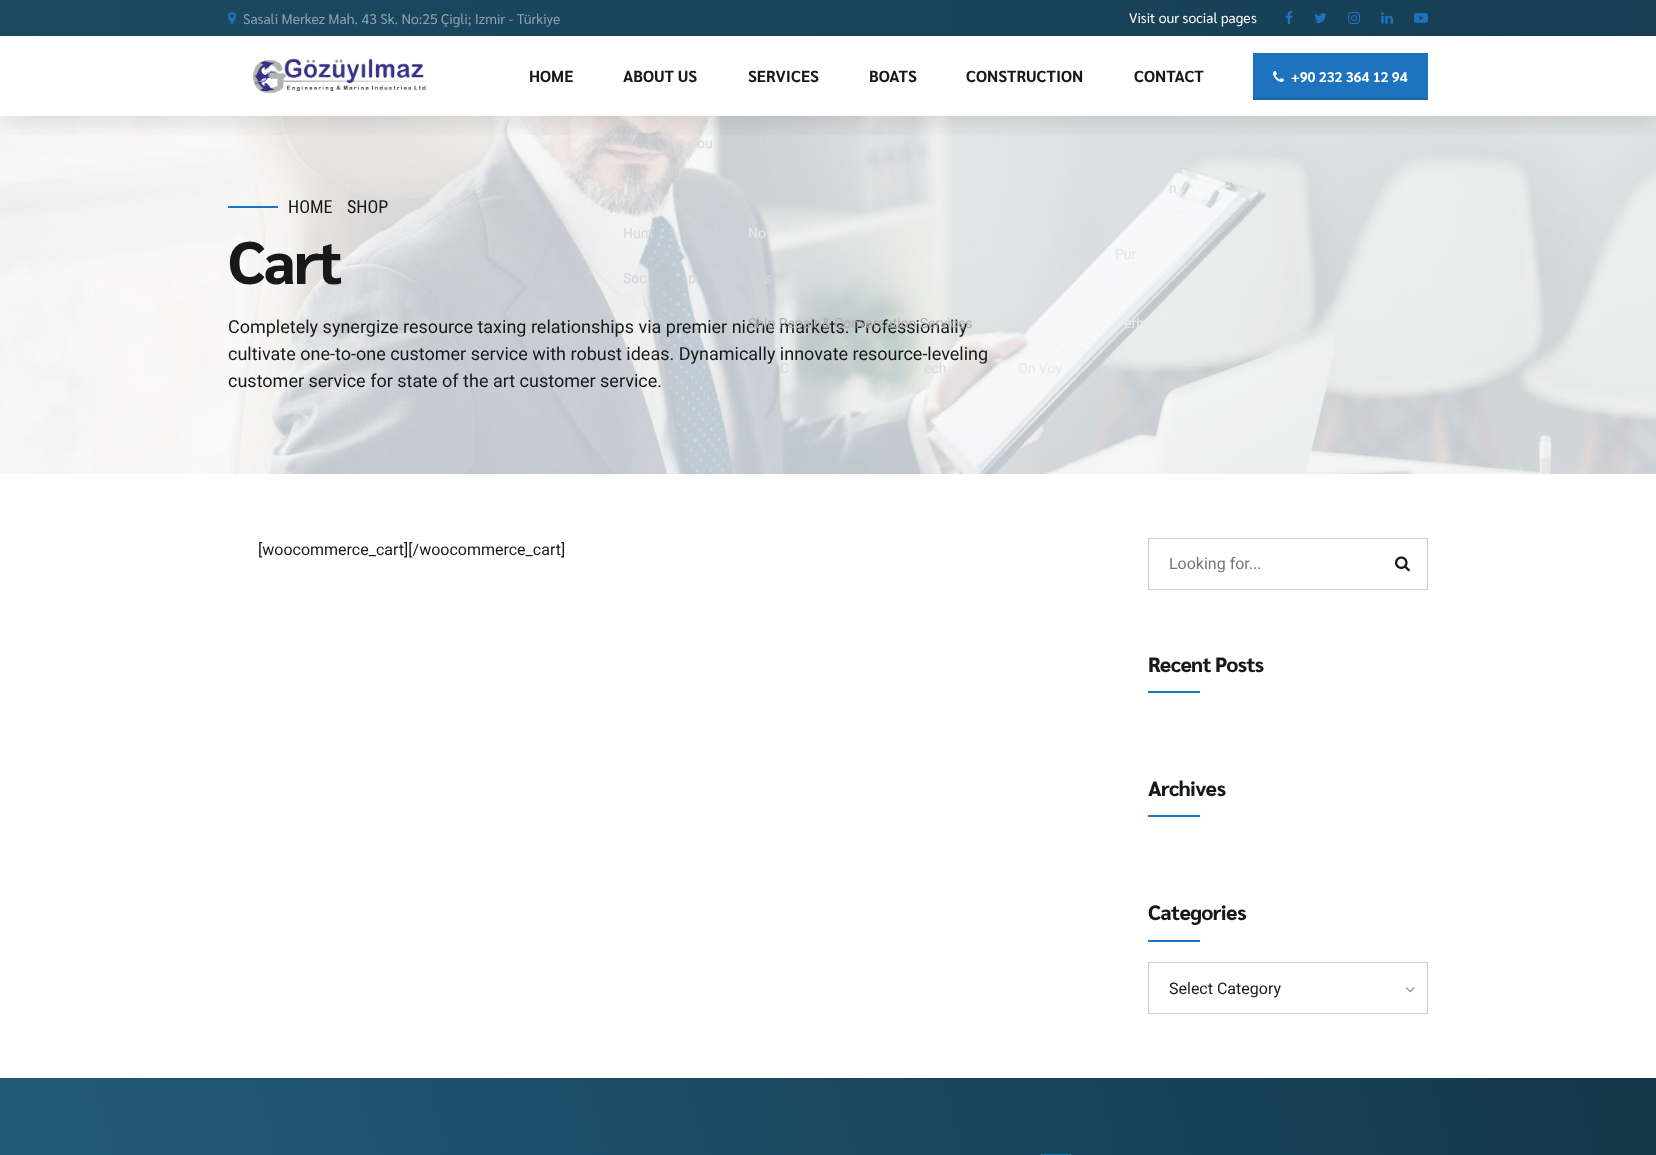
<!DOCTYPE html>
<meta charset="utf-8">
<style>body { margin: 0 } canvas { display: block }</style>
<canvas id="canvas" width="1656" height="1155"></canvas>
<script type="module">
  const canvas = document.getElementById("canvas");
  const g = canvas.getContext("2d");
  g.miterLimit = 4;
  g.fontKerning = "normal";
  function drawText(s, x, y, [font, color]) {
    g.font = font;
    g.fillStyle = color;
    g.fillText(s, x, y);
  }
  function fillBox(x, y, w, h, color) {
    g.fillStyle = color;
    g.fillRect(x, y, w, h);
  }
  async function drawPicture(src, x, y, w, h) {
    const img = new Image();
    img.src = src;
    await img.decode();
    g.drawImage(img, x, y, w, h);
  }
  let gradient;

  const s1 = ["14px Sarabun", "#8DA3AF"];
  const s2 = ["14px Sarabun", "#FFFFFF"];
  const s3 = ["bold 16px Sarabun", "#181818"];
  const s4 = ["14px Roboto", "#D8D8DA"];
  const s5 = ["14px Roboto", "#D1D6DB"];
  const s6 = ["14px Roboto", "#E7E8E8"];
  const s7 = ["14px Roboto", "#DCDEDF"];
  const s8 = ["18px Roboto", "#181818"];
  const s9 = ["14px Roboto", "#A8ADAE"];
  const s10 = ["14px Roboto", "#ECEDEF"];
  const s11 = ["bold 14px Sarabun", "#FFFFFF"];
  const s12 = ["18px Roboto Condensed", "#181818"];
  const s13 = ["800 60px Sarabun", "#181818"];
  const s14 = ["16px Roboto", "#181818"];
  const s15 = ["16px Roboto", "#757575"];
  const s16 = ["800 20.75px Sarabun", "#181818"];

  fillBox(0, 0, 1656, 1155, "#FFFFFF");
  await drawPicture("pic9.png", 0, 116, 1656, 358);
  g.save();
  g.beginPath();
  g.rect(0, 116, 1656, 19);
  g.clip();
  g.fillStyle = "rgba(0, 0, 0, 0.15)";
  g.filter = "blur(15px)";
  g.beginPath();
  g.rect(0, 2, 1656, 116);
  g.fill();
  g.filter = "none";
  g.restore();
  gradient = g.createLinearGradient(0, 18, 1656, 18);
  gradient.addColorStop(0, "#1B4962");
  gradient.addColorStop(1, "#173E53");
  g.fillStyle = gradient;
  g.fillRect(0, 0, 1656, 36);
  await drawPicture("pic1.png", 228, 12, 8, 12);
  drawText("Sasali Merkez Mah. 43 Sk. No:25 Çigli; Izmir - Türkiye", 243, 24, s1);
  drawText("Visit our social pages", 1129, 23, s2);
  await drawPicture("pic2.png", 1285, 11, 8, 13);
  await drawPicture("pic3.png", 1314, 13, 13, 10);
  await drawPicture("pic4.png", 1348, 12, 12, 12);
  await drawPicture("pic5.png", 1381, 12, 12, 12);
  await drawPicture("pic6.png", 1414, 13, 14, 10);
  await drawPicture("pic7.png", 253, 58, 174, 36);
  drawText("HOME", 529, 82, s3);
  drawText("ABOUT US", 623, 82, s3);
  drawText("ou", 697, 148, s4);
  drawText("Hum", 623, 238, s4);
  drawText("Soc", 623, 283, s5);
  drawText("p", 688, 283, s5);
  drawText("SERVICES", 748, 82, s3);
  drawText("No", 748, 238, s6);
  drawText("s", 764, 283, s7);
  drawText("Completely synergize resource taxing relationships via premier niche markets. Professionally", 228, 333, s8);
  drawText("Ship Repair & Conversation Services", 748, 328, s9);
  drawText("erh", 1124, 328, s10);
  drawText("On Voy", 1018, 373, s6);
  drawText("C", 780, 373, s4);
  drawText("ech", 924, 373, s4);
  drawText("BOATS", 869, 82, s3);
  drawText("CONSTRUCTION", 966, 82, s3);
  drawText("n", 1169, 193, s7);
  drawText("Pur", 1115, 259, s6);
  drawText("CONTACT", 1134, 82, s3);
  fillBox(1253, 53, 175, 45, "#1E73BE");
  fillBox(1253, 98, 175, 2, "#1D65A5");
  await drawPicture("pic8.png", 1273, 71, 11, 11);
  drawText("+90 232 364 12 94", 1291, 82, s11);
  fillBox(228, 206, 50, 2, "#1E73BE");
  drawText("HOME", 288, 213, s12);
  drawText("SHOP", 347, 213, s12);
  g.letterSpacing = "-2px";
  drawText("Cart", 228, 284, s13);
  g.letterSpacing = "0px";
  drawText("cultivate one-to-one customer service with robust ideas. Dynamically innovate resource-leveling", 228, 360, s8);
  drawText("customer service for state of the art customer service.", 228, 387, s8);
  drawText("[woocommerce_cart][/woocommerce_cart]", 258, 555, s14);
  g.strokeStyle = "#D1D1D1";
  g.strokeRect(1148.5, 538.5, 279, 51);
  drawText("Looking for...", 1169, 569, s15);
  await drawPicture("pic10.png", 1395, 556, 15, 16);
  g.letterSpacing = "-0.6px";
  drawText("Recent Posts", 1148, 672, s16);
  fillBox(1148, 691, 52, 2, "#1E73BE");
  drawText("Archives", 1148, 796, s16);
  fillBox(1148, 815, 52, 2, "#1E73BE");
  drawText("Categories", 1148, 920, s16);
  fillBox(1148, 940, 52, 2, "#1E73BE");
  g.strokeRect(1148.5, 962.5, 279, 51);
  g.letterSpacing = "0px";
  drawText("Select Category", 1169, 994, s14);
  await drawPicture("pic11.png", 1405, 987, 10, 6);
  gradient = g.createLinearGradient(26, 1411, 1630, 982);
  gradient.addColorStop(0, "#225B7B");
  gradient.addColorStop(1, "#143749");
  g.fillStyle = gradient;
  g.fillRect(0, 1078, 1656, 77);
  fillBox(1041, 1154, 30, 1, "#1E73BE");
</script>
